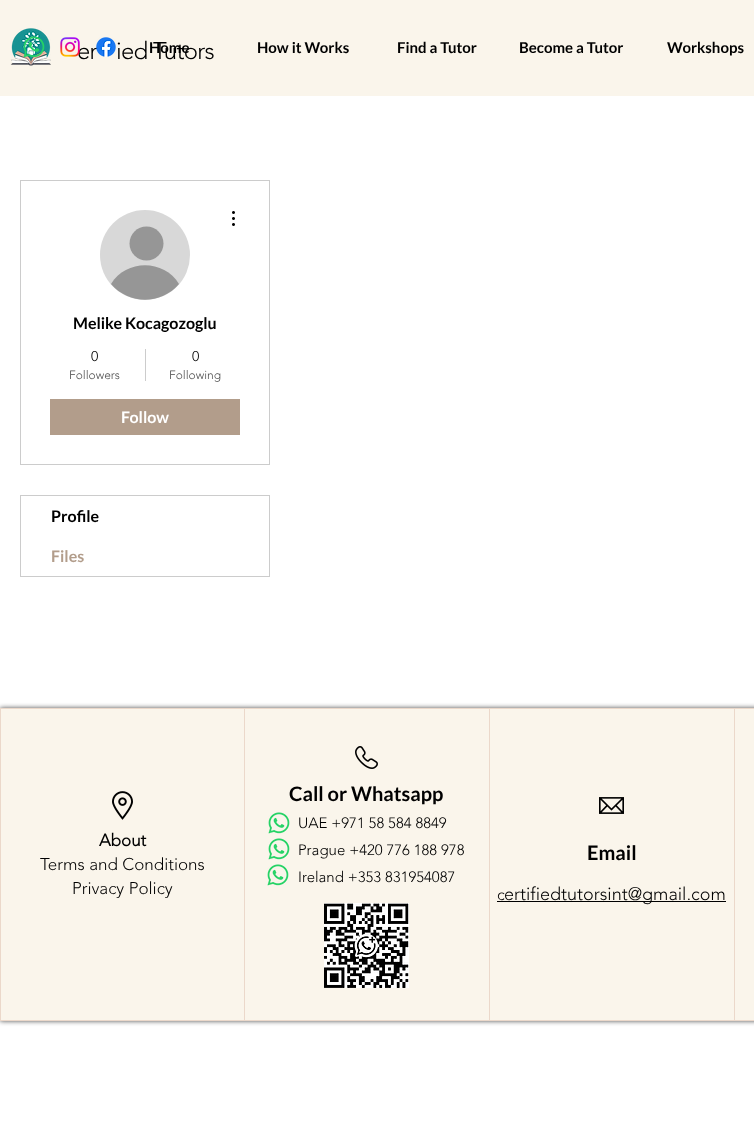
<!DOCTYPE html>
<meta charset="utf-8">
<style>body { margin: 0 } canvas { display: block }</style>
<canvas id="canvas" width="754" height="1143"></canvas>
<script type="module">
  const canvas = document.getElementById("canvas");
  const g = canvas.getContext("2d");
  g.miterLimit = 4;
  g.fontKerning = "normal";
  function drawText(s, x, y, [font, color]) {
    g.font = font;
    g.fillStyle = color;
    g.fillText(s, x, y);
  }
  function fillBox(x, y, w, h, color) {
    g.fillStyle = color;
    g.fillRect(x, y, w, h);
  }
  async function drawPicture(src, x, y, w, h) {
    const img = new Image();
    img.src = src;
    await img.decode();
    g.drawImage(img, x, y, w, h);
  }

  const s1 = ["300 24px 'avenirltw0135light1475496'", "#000000"];
  const s2 = ["bold 15px Lato", "#000000"];
  const s3 = ["bold 16px Lato", "#000000"];
  const s4 = ["300 14px 'avenirltw0135light1475496'", "#000000"];
  const s5 = ["300 12px 'avenirltw0135light1475496'", "#4D4D4D"];
  const s6 = ["bold 16px Lato", "#FFFFFF"];
  const s7 = ["bold 16px Lato", "#B29D8B"];
  const s8 = ["bold 17px 'avenirltw0135light1475496'", "#000000"];
  const s9 = ["300 17px 'avenirltw0135light1475496'", "#000000"];
  const s10 = ["bold 20px Lato", "#000000"];
  const s11 = ["300 15px 'avenirltw0135light1475496'", "#000000"];
  const s12 = ["300 16px 'avenirltw0135light1475496'", "#000000"];
  const s13 = ["300 18px 'avenirltw0135light1475496'", "#000000"];

  fillBox(0, 0, 754, 1143, "#FFFFFF");
  fillBox(0, 0, 754, 96, "#FAF5EB");
  await drawPicture("pic1.png", 10, 28, 41, 38);
  g.letterSpacing = "-0.75px";
  drawText("er", 77, 59, s1);
  drawText("ied Tutors", 116, 59, s1);
  await drawPicture("pic2.png", 23, 36, 22, 22);
  await drawPicture("pic3.png", 60, 37, 20, 20);
  await drawPicture("pic4.png", 96, 37, 20, 20);
  g.letterSpacing = "0px";
  drawText("Home", 149, 53, s2);
  drawText("How it Works", 257, 53, s2);
  drawText("Find a Tutor", 397, 53, s2);
  drawText("Become a Tutor", 519, 53, s2);
  drawText("Workshops", 667, 53, s2);
  g.strokeStyle = "#CCCCCC";
  g.strokeRect(20.5, 180.5, 249, 284);
  g.fillStyle = "#D8D8D8";
  g.beginPath();
  g.arc(145, 255, 45, 0, Math.PI * 2);
  g.fill();
  g.fillStyle = "#969696";
  g.beginPath();
  g.arc(146.5, 243.5, 17, 0, Math.PI * 2);
  g.fill();
  g.beginPath();
  g.moveTo(179, 284);
  g.bezierCurveTo(161, 305, 129, 305, 111, 284);
  g.bezierCurveTo(126, 259, 164, 259, 179, 284);
  g.closePath();
  g.fill();
  await drawPicture("pic5.png", 232, 211, 3, 15);
  drawText("Melike Kocagozoglu", 73, 329, s3);
  drawText("0", 91, 361, s4);
  drawText("Followers", 69, 379, s5);
  fillBox(145, 349, 1, 32, "#CCCCCC");
  drawText("0", 192, 361, s4);
  drawText("Following", 169, 379, s5);
  fillBox(50, 399, 190, 36, "#B29D8B");
  drawText("Follow", 121, 423, s6);
  g.strokeRect(20.5, 495.5, 249, 81);
  drawText("Profile", 51, 522, s3);
  drawText("Files", 51, 562, s7);
  g.fillStyle = "rgba(0, 0, 0, 0.7)";
  g.filter = "blur(2.5px)";
  g.beginPath();
  g.rect(0, 708, 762, 313);
  g.fill();
  g.filter = "none";
  fillBox(0, 708, 754, 313, "#EBD8CA");
  fillBox(1, 709, 243, 311, "#FAF5EB");
  await drawPicture("pic6.png", 112, 791, 21, 29);
  drawText("About", 99, 846, s8);
  drawText("Terms and Conditions", 40, 870, s9);
  drawText("Privacy Policy", 72, 894, s9);
  fillBox(245, 709, 244, 311, "#FAF5EB");
  await drawPicture("pic7.png", 267, 864, 22, 22);
  await drawPicture("pic8.png", 355, 746, 23, 23);
  drawText("Call or Whatsapp", 289, 801, s10);
  await drawPicture("pic7.png", 268, 812, 22, 22);
  drawText("UAE +971 58 584 8849", 298, 828, s11);
  drawText("Prague +420 776 188 978", 298, 855, s11);
  drawText("Ireland +353 831954087", 298, 882, s11);
  await drawPicture("pic7.png", 268, 838, 22, 22);
  await drawPicture("pic9.png", 324, 903, 85, 85);
  fillBox(490, 709, 244, 311, "#FAF5EB");
  await drawPicture("pic10.png", 599, 797, 25, 17);
  drawText("Email", 587, 860, s10);
  drawText("c", 497, 900, s12);
  fillBox(497, 901, 229, 1, "#000000");
  drawText("ertifiedtutorsint@gmail.com", 504, 900, s13);
  fillBox(735, 709, 19, 311, "#FAF5EB");
</script>
